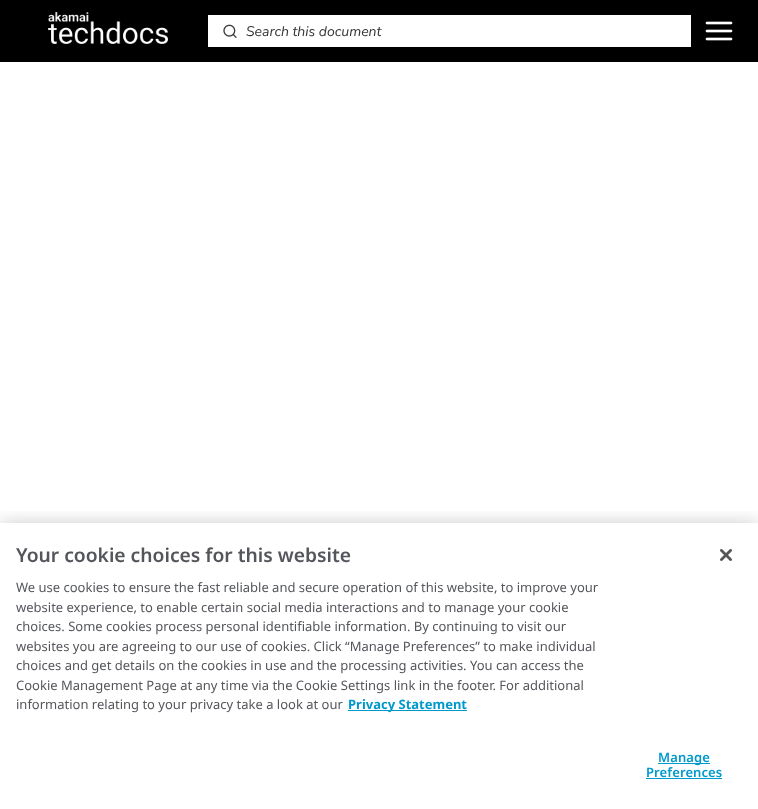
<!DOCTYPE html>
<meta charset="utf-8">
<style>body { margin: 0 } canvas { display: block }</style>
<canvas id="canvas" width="758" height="809"></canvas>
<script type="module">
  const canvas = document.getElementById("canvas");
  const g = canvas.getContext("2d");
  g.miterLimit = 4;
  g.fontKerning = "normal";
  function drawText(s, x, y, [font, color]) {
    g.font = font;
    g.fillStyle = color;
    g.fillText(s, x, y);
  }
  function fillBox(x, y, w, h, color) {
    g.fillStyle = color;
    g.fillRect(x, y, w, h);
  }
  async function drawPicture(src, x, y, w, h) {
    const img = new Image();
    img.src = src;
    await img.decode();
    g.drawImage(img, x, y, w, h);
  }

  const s1 = ["italic 14px Nunito Sans", "#343438"];
  const s2 = ["600 19.25px Noto Sans", "#54565B"];
  const s3 = ["13px Noto Sans", "#54565B"];
  const s4 = ["bold 13px Noto Sans", "#0099CC"];
  const s5 = ["600 13px Noto Sans", "#0099CC"];

  fillBox(0, 0, 758, 809, "#FFFFFF");
  fillBox(0, 0, 758, 62, "#000000");
  await drawPicture("pic1.png", 48, 12, 120, 32);
  fillBox(208, 15, 483, 32, "#FFFFFF");
  await drawPicture("pic2.png", 223, 24, 14, 14);
  drawText("Search this document", 246, 36, s1);
  await drawPicture("pic3.png", 705, 21, 28, 20);
  g.save();
  g.beginPath();
  g.rect(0, 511, 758, 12);
  g.clip();
  g.fillStyle = "rgba(0, 0, 0, 0.2)";
  g.filter = "blur(9px)";
  g.beginPath();
  g.rect(0, 523, 758, 286);
  g.fill();
  g.filter = "none";
  g.restore();
  drawText("Your cookie choices for this website", 16, 562, s2);
  drawText("We use cookies to ensure the fast reliable and secure operation of this website, to improve your", 16, 592, s3);
  drawText("website experience, to enable certain social media interactions and to manage your cookie", 16, 612, s3);
  drawText("choices. Some cookies process personal identifiable information. By continuing to visit our", 16, 631, s3);
  drawText("websites you are agreeing to our use of cookies. Click “Manage Preferences” to make individual", 16, 651, s3);
  drawText("choices and get details on the cookies in use and the processing activities. You can access the", 16, 670, s3);
  drawText("Cookie Management Page at any time via the Cookie Settings link in the footer. For additional", 16, 690, s3);
  drawText("information relating to your privacy take a look at our", 16, 709, s3);
  fillBox(348, 710, 119, 1, "#0099CC");
  drawText("Privacy Statement", 348, 709, s4);
  fillBox(658, 763, 52, 1, "#0099CC");
  g.letterSpacing = "0.1px";
  drawText("Manage", 658, 762, s5);
  drawText("Preferences", 646, 777, s5);
  fillBox(646, 778, 76, 1, "#0099CC");
  await drawPicture("pic4.png", 720, 549, 12, 12);
</script>
